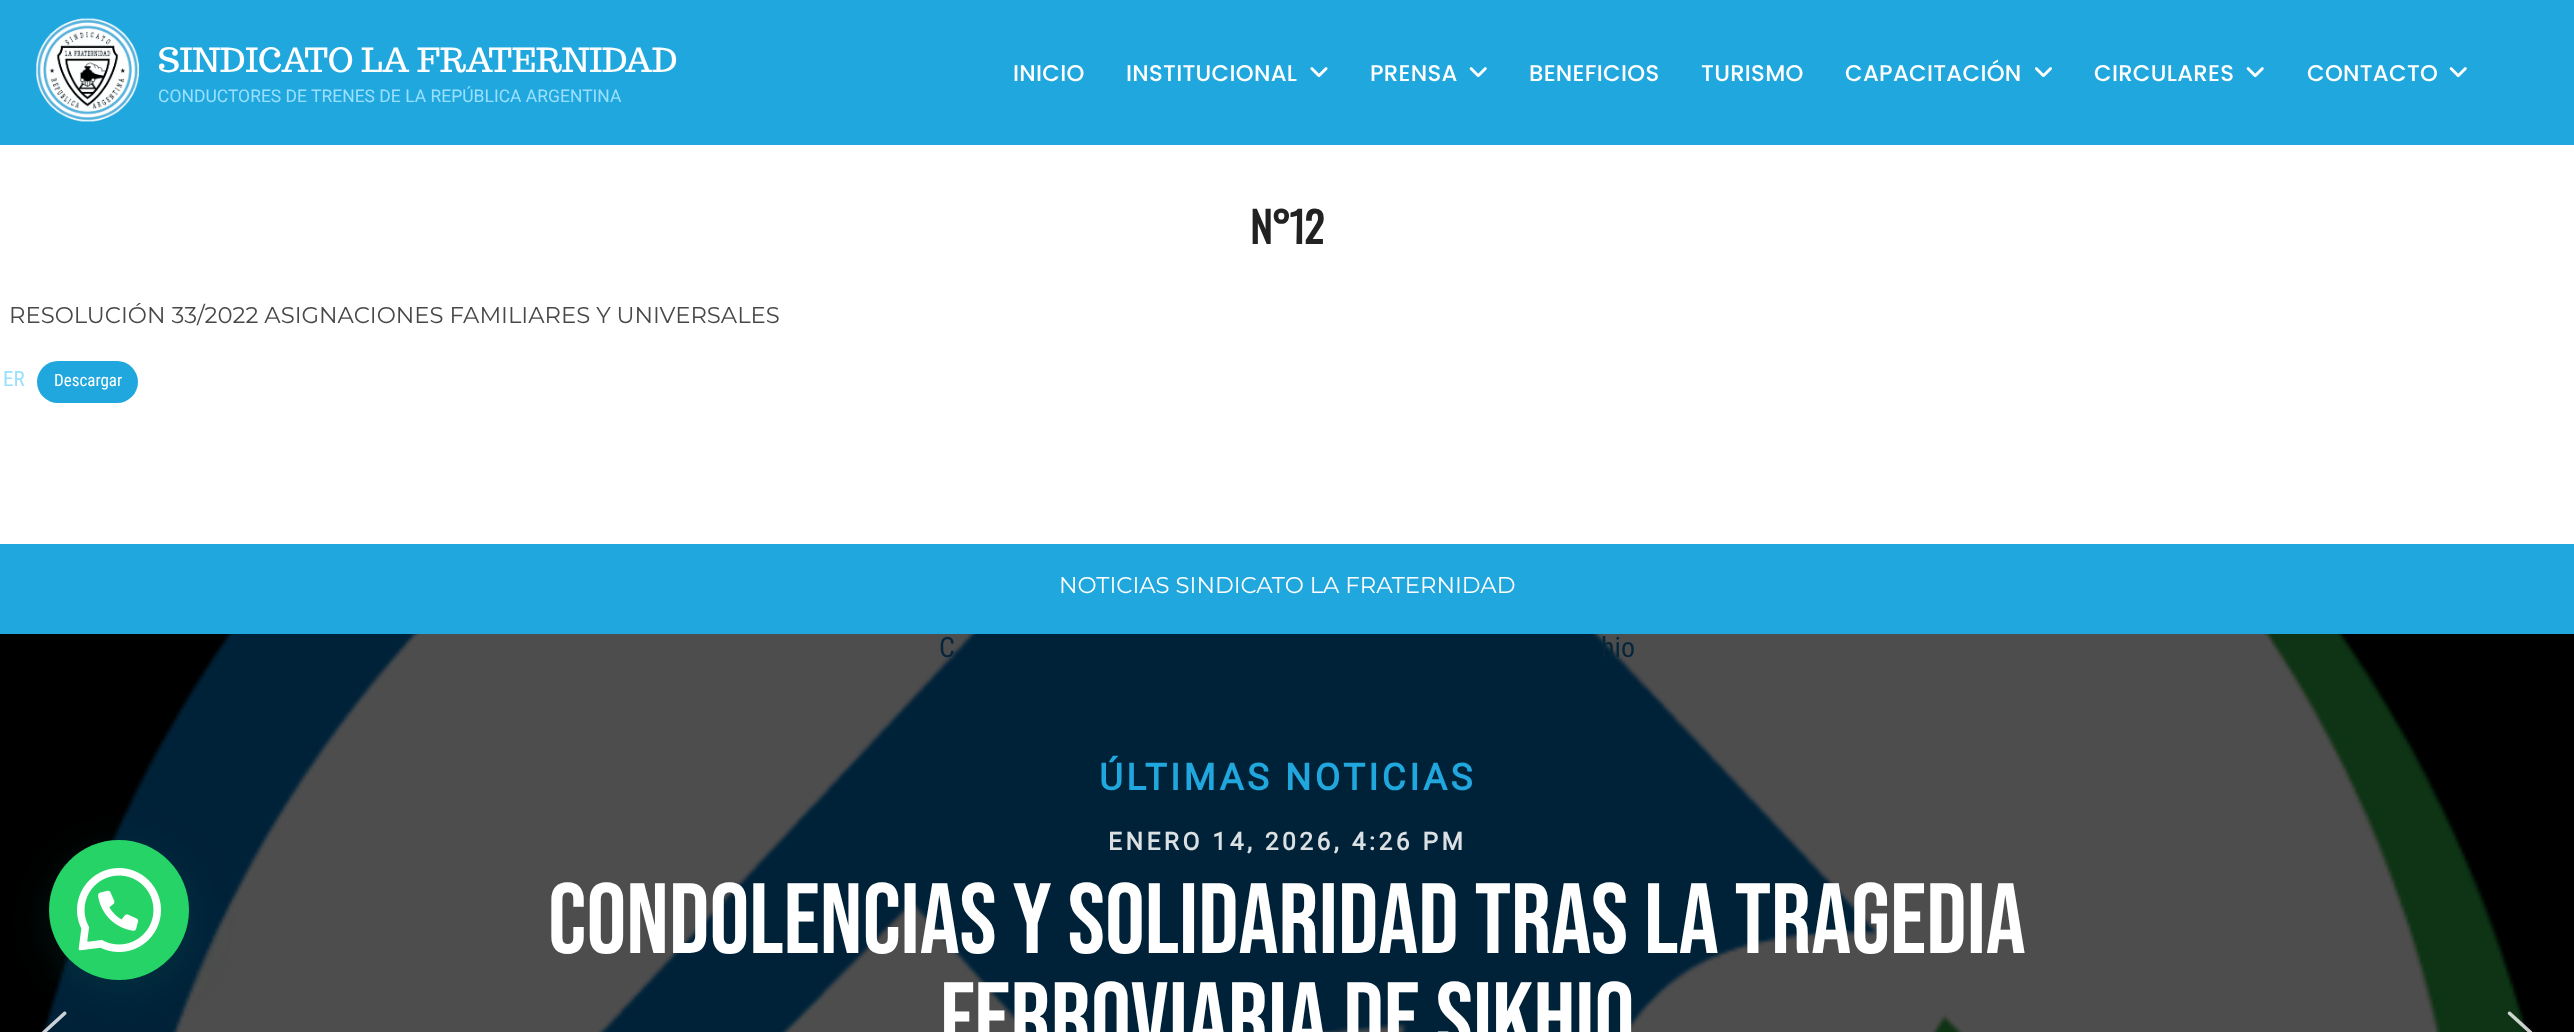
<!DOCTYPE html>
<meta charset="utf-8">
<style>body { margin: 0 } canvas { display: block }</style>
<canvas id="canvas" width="2574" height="1032"></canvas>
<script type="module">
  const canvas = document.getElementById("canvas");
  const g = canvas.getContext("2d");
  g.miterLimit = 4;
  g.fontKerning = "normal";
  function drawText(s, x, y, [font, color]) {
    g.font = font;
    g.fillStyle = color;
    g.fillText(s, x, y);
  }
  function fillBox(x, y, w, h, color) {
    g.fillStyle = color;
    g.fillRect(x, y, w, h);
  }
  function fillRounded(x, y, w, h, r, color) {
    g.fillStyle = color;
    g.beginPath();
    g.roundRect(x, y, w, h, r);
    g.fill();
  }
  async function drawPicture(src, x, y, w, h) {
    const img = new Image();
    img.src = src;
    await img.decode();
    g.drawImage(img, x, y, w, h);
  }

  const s1 = ["33.25px Trocchi", "#FFFFFF"];
  const s2 = ["17.5px Roboto", "#99E0FF"];
  const s3 = ["500 22.75px Poppins", "#FFFFFF"];
  const s4 = ["bold 42px Oswald", "#222222"];
  const s5 = ["100 22.75px Montserrat", "#484848"];
  const s6 = ["21px Roboto Condensed", "#99E0FF"];
  const s7 = ["17px Roboto Condensed", "#FFFFFF"];
  const s8 = ["100 22.75px Montserrat", "#FFFFFF"];
  const s9 = ["28px Roboto Condensed", "#05253A"];
  const s10 = ["bold 36.75px Roboto", "#20A7DE"];
  const s11 = ["bold 24.5px Roboto", "#DBE0E3"];
  const s12 = ["99.75px Bebas Neue", "#FFFFFF"];

  fillBox(0, 0, 2574, 1032, "#FFFFFF");
  fillBox(0, 0, 2574, 145, "#20A7DE");
  await drawPicture("pic1.png", 36, 18, 104, 104);
  drawText("SINDICATO LA FRATERNIDAD", 158, 72, s1);
  drawText("CONDUCTORES DE TRENES DE LA REPÚBLICA ARGENTINA", 158, 102, s2);
  g.letterSpacing = "0.3px";
  drawText("INICIO", 1013, 81, s3);
  drawText("INSTITUCIONAL", 1126, 81, s3);
  await drawPicture("pic2.png", 1310, 67, 18, 11);
  drawText("PRENSA", 1370, 81, s3);
  await drawPicture("pic3.png", 1469, 67, 18, 11);
  drawText("BENEFICIOS", 1529, 81, s3);
  drawText("TURISMO", 1701, 81, s3);
  drawText("CAPACITACIÓN", 1845, 81, s3);
  await drawPicture("pic4.png", 2034, 67, 18, 11);
  drawText("CIRCULARES", 2094, 81, s3);
  await drawPicture("pic3.png", 2246, 67, 18, 11);
  drawText("CONTACTO", 2307, 81, s3);
  await drawPicture("pic3.png", 2449, 67, 18, 11);
  g.letterSpacing = "-1px";
  drawText("N°12", 1250, 244, s4);
  g.letterSpacing = "0px";
  drawText("RESOLUCIÓN 33/2022 ASIGNACIONES FAMILIARES Y UNIVERSALES", 9, 323, s5);
  drawText("ER", 3, 386, s6);
  fillRounded(37, 361, 101, 42, 21, "#20A7DE");
  drawText("Descargar", 54, 386, s7);
  fillBox(0, 544, 2574, 90, "#20A7DE");
  drawText("NOTICIAS SINDICATO LA FRATERNIDAD", 1059, 593, s8);
  fillBox(0, 634, 2574, 398, "#000000");
  await drawPicture("pic6.png", 42, 634, 2486, 398);
  await drawPicture("pic5.png", 42, 1011, 25, 21);
  drawText("C", 939, 657, s9);
  drawText("hio", 1601, 657, s9);
  g.letterSpacing = "3.5px";
  drawText("ÚLTIMAS NOTICIAS", 1099, 790, s10);
  drawText("ENERO 14, 2026, 4:26 PM", 1108, 850, s11);
  g.letterSpacing = "0px";
  drawText("CONDOLENCIAS Y SOLIDARIDAD TRAS LA TRAGEDIA", 548, 953, s12);
  drawText("FERROVIARIA DE SIKHIO", 940, 1052, s12);
  await drawPicture("pic7.png", 2507, 1011, 26, 21);
  g.fillStyle = "rgba(7, 94, 84, 0.24)";
  g.filter = "blur(21px)";
  g.beginPath();
  g.roundRect(51, 851, 140, 140, 70);
  g.fill();
  g.filter = "none";
  g.fillStyle = "#25D366";
  g.beginPath();
  g.arc(119, 910, 70, 0, Math.PI * 2);
  g.fill();
  await drawPicture("pic8.png", 77, 868, 84, 84);
</script>
